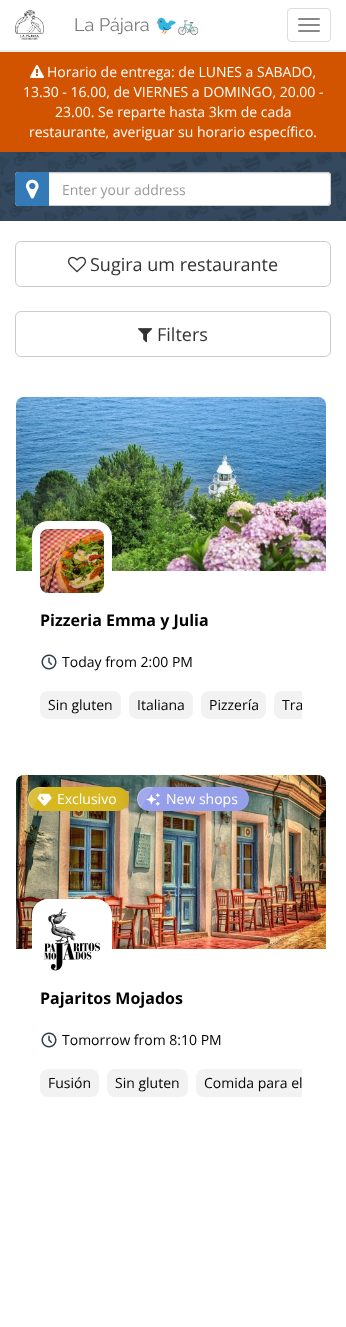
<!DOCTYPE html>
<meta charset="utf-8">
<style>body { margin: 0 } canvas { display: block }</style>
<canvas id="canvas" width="346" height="1327"></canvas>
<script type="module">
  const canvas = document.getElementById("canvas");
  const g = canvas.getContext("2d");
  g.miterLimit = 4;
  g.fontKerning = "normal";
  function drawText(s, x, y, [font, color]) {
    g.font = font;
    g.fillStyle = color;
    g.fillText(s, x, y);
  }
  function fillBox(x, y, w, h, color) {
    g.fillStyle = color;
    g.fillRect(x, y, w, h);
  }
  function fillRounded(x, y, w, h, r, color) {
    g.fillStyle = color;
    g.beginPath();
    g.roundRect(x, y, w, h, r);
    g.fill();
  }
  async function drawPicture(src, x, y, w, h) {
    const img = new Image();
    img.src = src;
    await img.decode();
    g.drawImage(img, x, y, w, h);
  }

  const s1 = ["18px Raleway", "#777777"];
  const s2 = ["18px Noto Color Emoji", "#777777"];
  const s3 = ["14px Open Sans", "#FFFFFF"];
  const s4 = ["14px Open Sans", "#999999"];
  const s5 = ["18px Open Sans", "#333333"];
  const s6 = ["bold 16px Open Sans", "#000000"];
  const s7 = ["14px Open Sans", "#000000"];

  fillBox(0, 0, 346, 1327, "#FFFFFF");
  fillBox(0, 50, 346, 2, "#ECF0F1");
  await drawPicture("pic1.png", 15, 10, 29, 30);
  drawText("La Pájara", 74, 31, s1);
  drawText("🐦🚲", 155, 31, s2);
  g.beginPath();
  g.roundRect(287.5, 8.5, 43, 33, 3.5);
  g.strokeStyle = "#DDDDDD";
  g.stroke();
  fillRounded(298, 18, 22, 2, 1, "#888888");
  fillRounded(298, 24, 22, 2, 1, "#888888");
  fillRounded(298, 30, 22, 2, 1, "#888888");
  fillBox(0, 52, 346, 100, "#D35400");
  await drawPicture("pic2.png", 30, 65, 14, 13);
  drawText("Horario de entrega: de LUNES a SABADO,", 47, 77, s3);
  drawText("13.30 - 16.00, de VIERNES a DOMINGO, 20.00 -", 23, 97, s3);
  drawText("23.00. Se reparte hasta 3km de cada", 55, 117, s3);
  drawText("restaurante, averiguar su horario específico.", 29, 137, s3);
  await drawPicture("pic3.png", 0, 152, 346, 69);
  fillRounded(15, 172, 316, 34, 4, "#FFFFFF");
  g.fillStyle = "#ECECEC";
  g.beginPath();
  g.moveTo(19, 174);
  g.lineTo(327, 174);
  g.bezierCurveTo(329, 174, 330, 175, 330, 177);
  g.lineTo(329, 174);
  g.lineTo(328, 173);
  g.lineTo(19, 173);
  g.bezierCurveTo(17, 173, 16, 175, 16, 177);
  g.bezierCurveTo(16, 175, 17, 174, 19, 174);
  g.closePath();
  g.fill();
  g.beginPath();
  g.roundRect(15.5, 172.5, 315, 33, 3.5);
  g.strokeStyle = "#CCCCCC";
  g.stroke();
  g.fillStyle = "#337AB7";
  g.beginPath();
  g.roundRect(15, 172, 34, 34, [4, 0, 0, 4]);
  g.fill();
  await drawPicture("pic4.png", 26, 179, 13, 20);
  drawText("Enter your address", 62, 195, s4);
  g.beginPath();
  g.roundRect(15.5, 241.5, 315, 45, 5.5);
  g.stroke();
  await drawPicture("pic5.png", 68, 256, 18, 17);
  drawText("Sugira um restaurante", 90, 271, s5);
  g.beginPath();
  g.roundRect(15.5, 311.5, 315, 45, 5.5);
  g.stroke();
  await drawPicture("pic6.png", 138, 328, 15, 15);
  drawText("Filters", 157, 341, s5);
  await drawPicture("pic7.png", 16, 397, 310, 174);
  fillRounded(32, 521, 80, 80, 16, "#FFFFFF");
  await drawPicture("pic8.png", 40, 529, 64, 64);
  drawText("Pizzeria Emma y Julia", 40, 626, s6);
  await drawPicture("pic9.png", 41, 654, 16, 16);
  drawText("Today from 2:00 PM", 62, 667, s7);
  fillRounded(40, 691, 81, 28, 8, "#F2F2F2");
  drawText("Sin gluten", 48, 710, s7);
  fillRounded(129, 691, 64, 28, 8, "#F2F2F2");
  drawText("Italiana", 137, 710, s7);
  fillRounded(201, 691, 65, 28, 8, "#F2F2F2");
  drawText("Pizzería", 209, 710, s7);
  g.fillStyle = "#F2F2F2";
  g.beginPath();
  g.roundRect(274, 691, 28, 28, [8, 0, 0, 8]);
  g.fill();
  g.save();
  g.beginPath();
  g.rect(40, 691, 262, 28);
  g.clip();
  drawText("Tra", 282, 710, s7);
  g.restore();
  await drawPicture("pic10.png", 16, 775, 310, 174);
  g.save();
  g.beginPath();
  g.roundRect(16, 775, 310, 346, 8);
  g.clip();
  g.fillStyle = "rgba(0, 0, 0, 0.25)";
  g.filter = "blur(16px)";
  g.beginPath();
  g.roundRect(28, 787, 101, 24, 12);
  g.fill();
  g.filter = "none";
  g.restore();
  fillRounded(28, 787, 101, 24, 12, "#D7B722");
  g.fillStyle = "rgba(255, 255, 255, 0.25)";
  g.beginPath();
  g.moveTo(40, 787);
  g.lineTo(44, 787);
  g.lineTo(32, 808);
  g.bezierCurveTo(24, 801, 29, 787, 40, 787);
  g.closePath();
  g.fill();
  fillRounded(29, 788, 99, 22, 11, "#D7B722");
  await drawPicture("pic11.png", 37, 793, 15, 13);
  g.fillStyle = "rgba(255, 255, 255, 0.12)";
  g.beginPath();
  g.moveTo(40, 787);
  g.lineTo(44.5, 787);
  g.lineTo(32.5, 808.5);
  g.bezierCurveTo(24, 801.5, 28.5, 787, 40, 787);
  g.closePath();
  g.fill();
  drawText("Exclusivo", 57, 804, s3);
  g.save();
  g.beginPath();
  g.roundRect(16, 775, 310, 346, 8);
  g.clip();
  g.fillStyle = "rgba(0, 0, 0, 0.25)";
  g.filter = "blur(16px)";
  g.beginPath();
  g.roundRect(137, 787, 112, 24, 12);
  g.fill();
  g.filter = "none";
  g.restore();
  fillRounded(137, 787, 112, 24, 12, "#969FEA");
  g.fillStyle = "rgba(255, 255, 255, 0.25)";
  g.beginPath();
  g.moveTo(149, 787);
  g.lineTo(152.5, 787);
  g.lineTo(141, 808);
  g.bezierCurveTo(133, 800.5, 138, 787, 149, 787);
  g.closePath();
  g.fill();
  fillRounded(138, 788, 110, 22, 11, "#969FEA");
  await drawPicture("pic12.png", 146, 793, 14, 13);
  g.fillStyle = "rgba(255, 255, 255, 0.12)";
  g.beginPath();
  g.moveTo(149, 787);
  g.lineTo(153.5, 787);
  g.lineTo(141, 808);
  g.bezierCurveTo(133, 801, 138, 787, 149, 787);
  g.closePath();
  g.fill();
  drawText("New shops", 166, 804, s3);
  fillRounded(32, 899, 80, 80, 16, "#FFFFFF");
  await drawPicture("pic13.png", 44, 908, 56, 63);
  drawText("Pajaritos Mojados", 40, 1004, s6);
  await drawPicture("pic9.png", 41, 1032, 16, 16);
  drawText("Tomorrow from 8:10 PM", 62, 1045, s7);
  fillRounded(40, 1069, 59, 28, 8, "#F2F2F2");
  drawText("Fusión", 48, 1088, s7);
  fillRounded(107, 1069, 81, 28, 8, "#F2F2F2");
  drawText("Sin gluten", 115, 1088, s7);
  g.fillStyle = "#F2F2F2";
  g.beginPath();
  g.roundRect(196, 1069, 106, 28, [8, 0, 0, 8]);
  g.fill();
  drawText("Comida para el", 204, 1088, s7);
</script>
